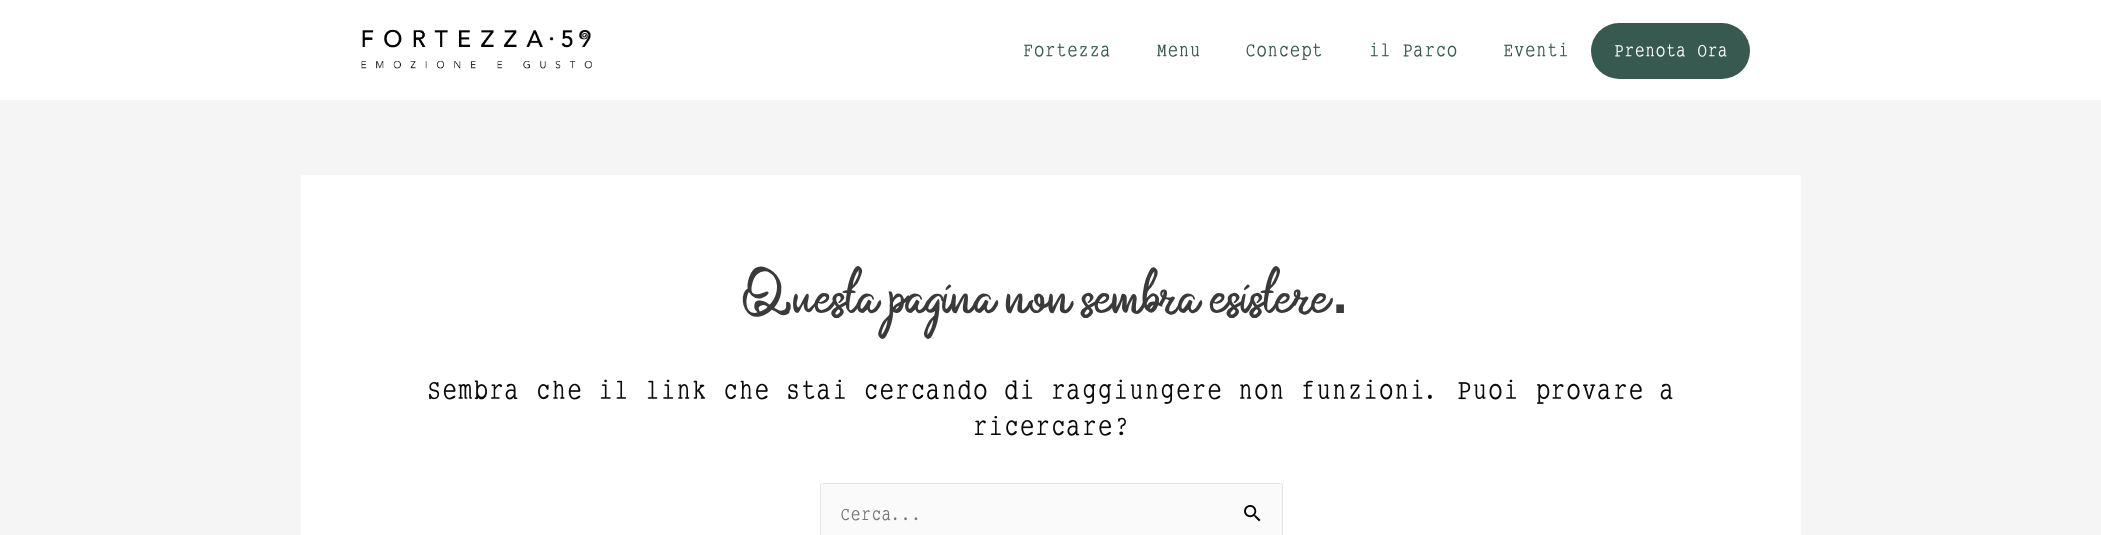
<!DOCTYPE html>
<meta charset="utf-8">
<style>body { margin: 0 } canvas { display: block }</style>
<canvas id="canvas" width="2101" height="535"></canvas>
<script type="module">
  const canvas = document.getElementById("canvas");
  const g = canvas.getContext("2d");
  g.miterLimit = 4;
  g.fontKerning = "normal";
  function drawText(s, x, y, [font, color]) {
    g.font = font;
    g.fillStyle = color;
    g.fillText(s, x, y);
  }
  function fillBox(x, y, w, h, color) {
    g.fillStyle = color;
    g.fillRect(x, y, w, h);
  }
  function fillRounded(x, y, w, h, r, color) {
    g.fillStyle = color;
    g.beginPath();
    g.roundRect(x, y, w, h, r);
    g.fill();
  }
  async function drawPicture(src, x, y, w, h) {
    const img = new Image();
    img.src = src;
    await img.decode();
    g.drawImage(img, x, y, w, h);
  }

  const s1 = ["80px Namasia", "#3A3A3A"];
  const s2 = ["80px Liberation Sans", "#3A3A3A"];

  fillBox(0, 0, 2101, 535, "#F5F5F5");
  fillBox(0, 0, 2101, 100, "#FFFFFF");
  await drawPicture("pic1.png", 361, 29, 231, 40);
  await drawPicture("pic2.png", 1024, 43, 86, 14);
  await drawPicture("pic3.png", 1157, 44, 43, 13);
  await drawPicture("pic4.png", 1246, 43, 76, 17);
  await drawPicture("pic5.png", 1370, 42, 87, 15);
  await drawPicture("pic6.png", 1504, 42, 64, 15);
  fillRounded(1591, 23, 159, 56, 28, "#38594F");
  await drawPicture("pic7.png", 1615, 44, 112, 13);
  fillBox(301, 175, 1500, 360, "#FFFFFF");
  drawText("Questa pagina non sembra esistere", 750, 313, s1);
  drawText(".", 1329, 313, s2);
  await drawPicture("pic8.png", 429, 379, 1244, 25);
  await drawPicture("pic9.png", 974, 415, 152, 21);
  g.fillStyle = "#FAFAFA";
  g.beginPath();
  g.roundRect(820.5, 483.5, 462, 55, 2);
  g.fill();
  g.strokeStyle = "#E5E5E5";
  g.stroke();
  await drawPicture("pic10.png", 841, 508, 77, 13);
  await drawPicture("pic11.png", 1244, 505, 17, 17);
</script>
